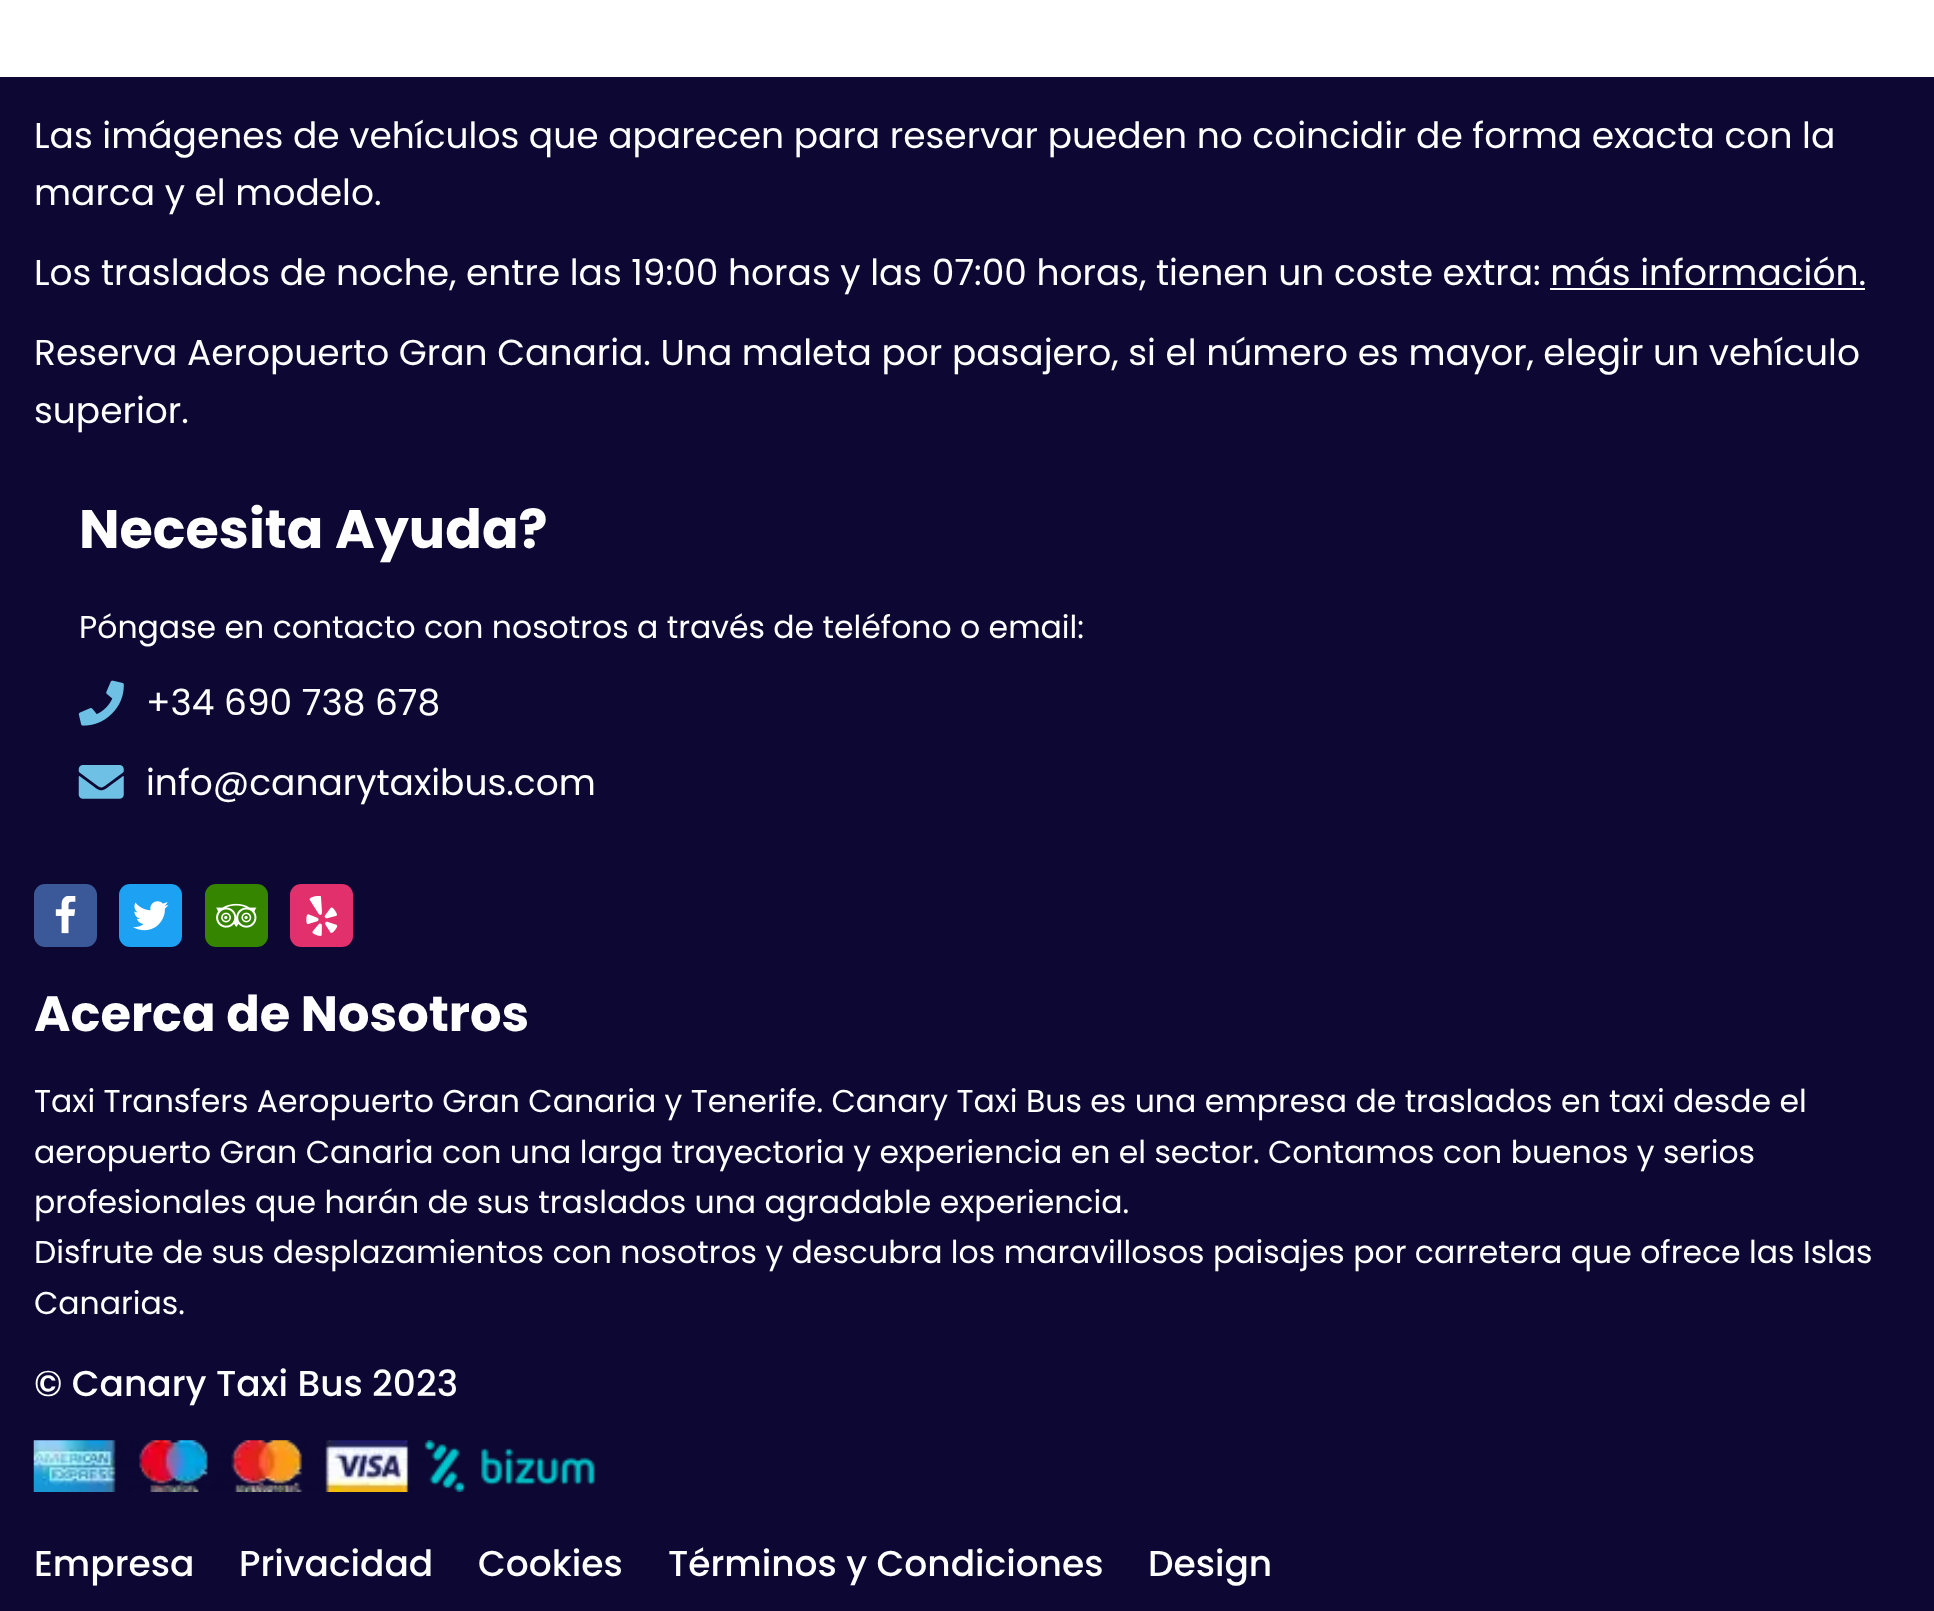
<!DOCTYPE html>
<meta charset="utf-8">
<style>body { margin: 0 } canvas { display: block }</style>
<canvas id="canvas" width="1934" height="1611"></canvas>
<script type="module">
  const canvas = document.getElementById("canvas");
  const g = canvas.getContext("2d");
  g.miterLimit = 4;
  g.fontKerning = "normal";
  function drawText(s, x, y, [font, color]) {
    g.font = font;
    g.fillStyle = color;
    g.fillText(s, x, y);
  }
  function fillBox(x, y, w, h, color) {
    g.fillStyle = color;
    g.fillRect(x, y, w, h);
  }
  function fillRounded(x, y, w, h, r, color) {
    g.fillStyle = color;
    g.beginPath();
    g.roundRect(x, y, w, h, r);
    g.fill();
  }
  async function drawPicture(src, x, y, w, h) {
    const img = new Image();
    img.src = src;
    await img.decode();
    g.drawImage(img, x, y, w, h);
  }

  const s1 = ["36px Poppins", "#FEFEFE"];
  const s2 = ["bold 54px Poppins", "#FEFEFE"];
  const s3 = ["31.5px Poppins", "#FEFEFE"];
  const s4 = ["bold 49.5px Poppins", "#FEFEFE"];
  const s5 = ["500 36px Poppins", "#FEFEFE"];

  fillBox(0, 0, 1934, 1611, "#FFFFFF");
  fillBox(0, 77, 1934, 1534, "#0C0833");
  drawText("Las imágenes de vehículos que aparecen para reservar pueden no coincidir de forma exacta con la", 34, 148, s1);
  drawText("marca y el modelo.", 34, 205, s1);
  drawText("Los traslados de noche, entre las 19:00 horas y las 07:00 horas, tienen un coste extra: más información.", 34, 285, s1);
  fillBox(1550, 288, 315, 2, "#FEFEFE");
  drawText("Reserva Aeropuerto Gran Canaria. Una maleta por pasajero, si el número es mayor, elegir un vehículo", 34, 365, s1);
  drawText("superior.", 34, 423, s1);
  drawText("Necesita Ayuda?", 79, 548, s2);
  drawText("Póngase en contacto con nosotros a través de teléfono o email:", 79, 638, s3);
  await drawPicture("pic1.png", 78, 680, 46, 46);
  drawText("+34 690 738 678", 146, 715, s1);
  await drawPicture("pic2.png", 78, 765, 46, 34);
  drawText("info@canarytaxibus.com", 146, 795, s1);
  fillRounded(34, 884, 63, 63, 11, "#3B5998");
  await drawPicture("pic3.png", 55, 896, 21, 38);
  fillRounded(119, 884, 63, 63, 11, "#1DA1F2");
  await drawPicture("pic4.png", 133, 901, 36, 30);
  fillRounded(205, 884, 63, 63, 11, "#358500");
  await drawPicture("pic5.png", 216, 903, 41, 25);
  fillRounded(290, 884, 63, 63, 11, "#E1306C");
  await drawPicture("pic6.png", 306, 896, 32, 40);
  drawText("Acerca de Nosotros", 34, 1031, s4);
  drawText("Taxi Transfers Aeropuerto Gran Canaria y Tenerife. Canary Taxi Bus es una empresa de traslados en taxi desde el", 34, 1112, s3);
  drawText("aeropuerto Gran Canaria con una larga trayectoria y experiencia en el sector. Contamos con buenos y serios", 34, 1163, s3);
  drawText("profesionales que harán de sus traslados una agradable experiencia.", 34, 1213, s3);
  drawText("Disfrute de sus desplazamientos con nosotros y descubra los maravillosos paisajes por carretera que ofrece las Islas", 34, 1263, s3);
  drawText("Canarias.", 34, 1314, s3);
  drawText("© Canary Taxi Bus 2023", 34, 1396, s5);
  await drawPicture("pic7.png", 33, 1440, 562, 52);
  drawText("Empresa", 34, 1576, s5);
  drawText("Privacidad", 239, 1576, s5);
  drawText("Cookies", 478, 1576, s5);
  drawText("Términos y Condiciones", 668, 1576, s5);
  drawText("Design", 1148, 1576, s5);
</script>
